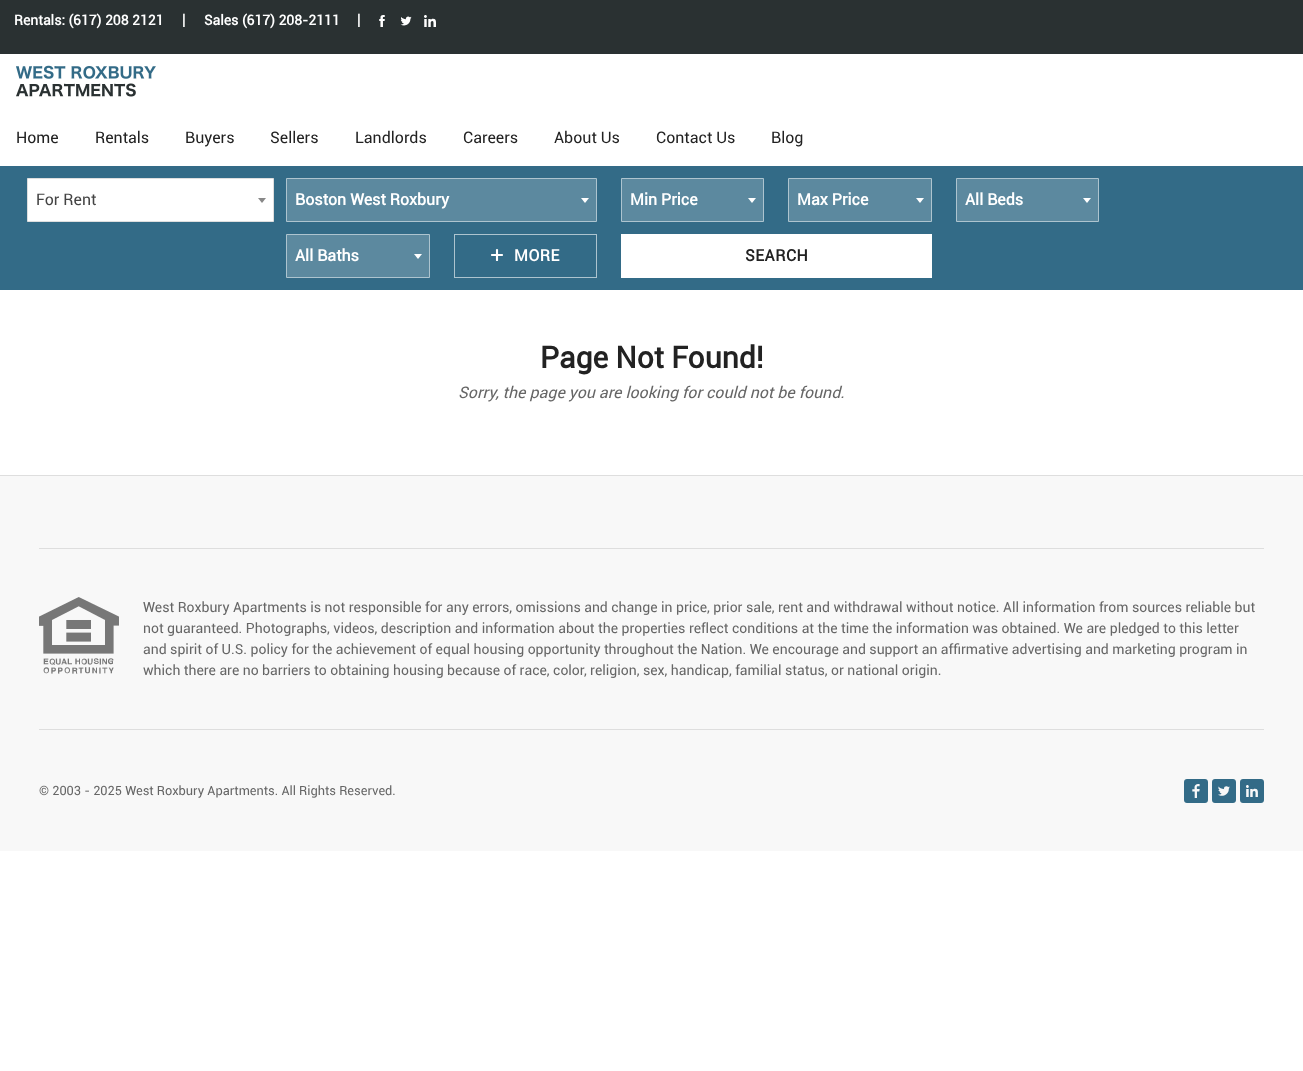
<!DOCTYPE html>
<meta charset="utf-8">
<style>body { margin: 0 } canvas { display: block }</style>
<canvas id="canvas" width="1303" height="1071"></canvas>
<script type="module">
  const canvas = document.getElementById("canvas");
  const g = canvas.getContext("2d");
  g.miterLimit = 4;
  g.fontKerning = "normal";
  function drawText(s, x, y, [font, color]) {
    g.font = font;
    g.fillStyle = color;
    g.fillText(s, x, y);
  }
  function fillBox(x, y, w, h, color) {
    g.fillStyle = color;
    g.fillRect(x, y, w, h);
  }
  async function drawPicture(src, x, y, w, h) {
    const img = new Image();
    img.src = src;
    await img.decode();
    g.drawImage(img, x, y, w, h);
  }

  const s1 = ["bold 14px Roboto", "#FFFFFF"];
  const s2 = ["16px Roboto", "#FFFFFF"];
  const s3 = ["16px Roboto", "#222222"];
  const s4 = ["16px Roboto", "#444444"];
  const s5 = ["bold 16px Roboto", "#FFFFFF"];
  const s6 = ["bold 16px Roboto", "#222222"];
  const s7 = ["bold 30px Roboto", "#222222"];
  const s8 = ["italic 16px Roboto", "#666666"];
  const s9 = ["14px Roboto", "#666666"];
  const s10 = ["12.8px Roboto", "#666666"];

  fillBox(0, 0, 1303, 1071, "#FFFFFF");
  fillBox(0, 0, 1303, 54, "#2A3132");
  drawText("Rentals: (617) 208 2121", 14, 25, s1);
  drawText("|", 182, 25, s2);
  drawText("Sales (617) 208-2111", 204, 25, s1);
  drawText("|", 357, 25, s2);
  await drawPicture("pic1.png", 379, 15, 6, 12);
  await drawPicture("pic2.png", 400, 16, 12, 10);
  await drawPicture("pic3.png", 424, 15, 12, 12);
  await drawPicture("pic4.png", 16, 65, 140, 32);
  drawText("Home", 16, 143, s3);
  drawText("Rentals", 95, 143, s3);
  drawText("Buyers", 185, 143, s3);
  drawText("Sellers", 270, 143, s3);
  drawText("Landlords", 355, 143, s3);
  drawText("Careers", 463, 143, s3);
  drawText("About Us", 554, 143, s3);
  drawText("Contact Us", 656, 143, s3);
  drawText("Blog", 771, 143, s3);
  fillBox(0, 166, 1303, 124, "#336B87");
  g.fillStyle = "#FFFFFF";
  g.beginPath();
  g.rect(27.5, 178.5, 246, 43);
  g.fill();
  g.strokeStyle = "#DEDEDE";
  g.stroke();
  drawText("For Rent", 36, 205, s4);
  g.fillStyle = "#888888";
  g.beginPath();
  g.moveTo(258, 198);
  g.lineTo(266, 198);
  g.lineTo(262, 203);
  g.closePath();
  g.fill();
  g.fillStyle = "#5C899F";
  g.beginPath();
  g.rect(286.5, 178.5, 310, 43);
  g.fill();
  g.strokeStyle = "#ADC4CF";
  g.stroke();
  drawText("Boston West Roxbury", 295, 205, s5);
  g.beginPath();
  g.moveTo(581, 198);
  g.lineTo(589, 198);
  g.lineTo(585, 203);
  g.closePath();
  g.fill();
  g.fillStyle = "#5C899F";
  g.beginPath();
  g.rect(621.5, 178.5, 142, 43);
  g.fill();
  g.stroke();
  drawText("Min Price", 630, 205, s5);
  g.beginPath();
  g.moveTo(748, 198);
  g.lineTo(756, 198);
  g.lineTo(752, 203);
  g.closePath();
  g.fill();
  g.fillStyle = "#5C899F";
  g.beginPath();
  g.rect(788.5, 178.5, 143, 43);
  g.fill();
  g.stroke();
  drawText("Max Price", 797, 205, s5);
  g.beginPath();
  g.moveTo(916, 198);
  g.lineTo(924, 198);
  g.lineTo(920, 203);
  g.closePath();
  g.fill();
  g.fillStyle = "#5C899F";
  g.beginPath();
  g.rect(956.5, 178.5, 142, 43);
  g.fill();
  g.stroke();
  drawText("All Beds", 965, 205, s5);
  g.beginPath();
  g.moveTo(1083, 198);
  g.lineTo(1091, 198);
  g.lineTo(1087, 203);
  g.closePath();
  g.fill();
  g.fillStyle = "#5C899F";
  g.beginPath();
  g.rect(286.5, 234.5, 143, 43);
  g.fill();
  g.stroke();
  drawText("All Baths", 295, 261, s5);
  g.beginPath();
  g.moveTo(414, 254);
  g.lineTo(422, 254);
  g.lineTo(418, 259);
  g.closePath();
  g.fill();
  g.strokeRect(454.5, 234.5, 142, 43);
  await drawPicture("pic5.png", 491, 249, 12, 12);
  g.letterSpacing = "0.5px";
  drawText("MORE", 514, 261, s5);
  fillBox(621, 234, 311, 44, "#FFFFFF");
  drawText("SEARCH", 745, 261, s6);
  g.letterSpacing = "0px";
  drawText("Page Not Found!", 540, 368, s7);
  drawText("Sorry, the page you are looking for could not be found.", 458, 398, s8);
  fillBox(0, 476, 1303, 375, "#F8F8F8");
  fillBox(0, 475, 1303, 1, "#DEDEDE");
  fillBox(39, 548, 1225, 1, "#DEDEDE");
  await drawPicture("pic6.png", 39, 597, 80, 77);
  drawText("West Roxbury Apartments is not responsible for any errors, omissions and change in price, prior sale, rent and withdrawal without notice. All information from sources reliable but", 143, 612, s9);
  drawText("not guaranteed. Photographs, videos, description and information about the properties reflect conditions at the time the information was obtained. We are pledged to this letter", 143, 633, s9);
  drawText("and spirit of U.S. policy for the achievement of equal housing opportunity throughout the Nation. We encourage and support an affirmative advertising and marketing program in", 143, 654, s9);
  drawText("which there are no barriers to obtaining housing because of race, color, religion, sex, handicap, familial status, or national origin.", 143, 675, s9);
  fillBox(39, 729, 1225, 1, "#DEDEDE");
  drawText("© 2003 - 2025 West Roxbury Apartments. All Rights Reserved.", 39, 795, s10);
  await drawPicture("pic7.png", 1184, 779, 24, 24);
  await drawPicture("pic8.png", 1212, 779, 24, 24);
  await drawPicture("pic9.png", 1240, 779, 24, 24);
</script>
